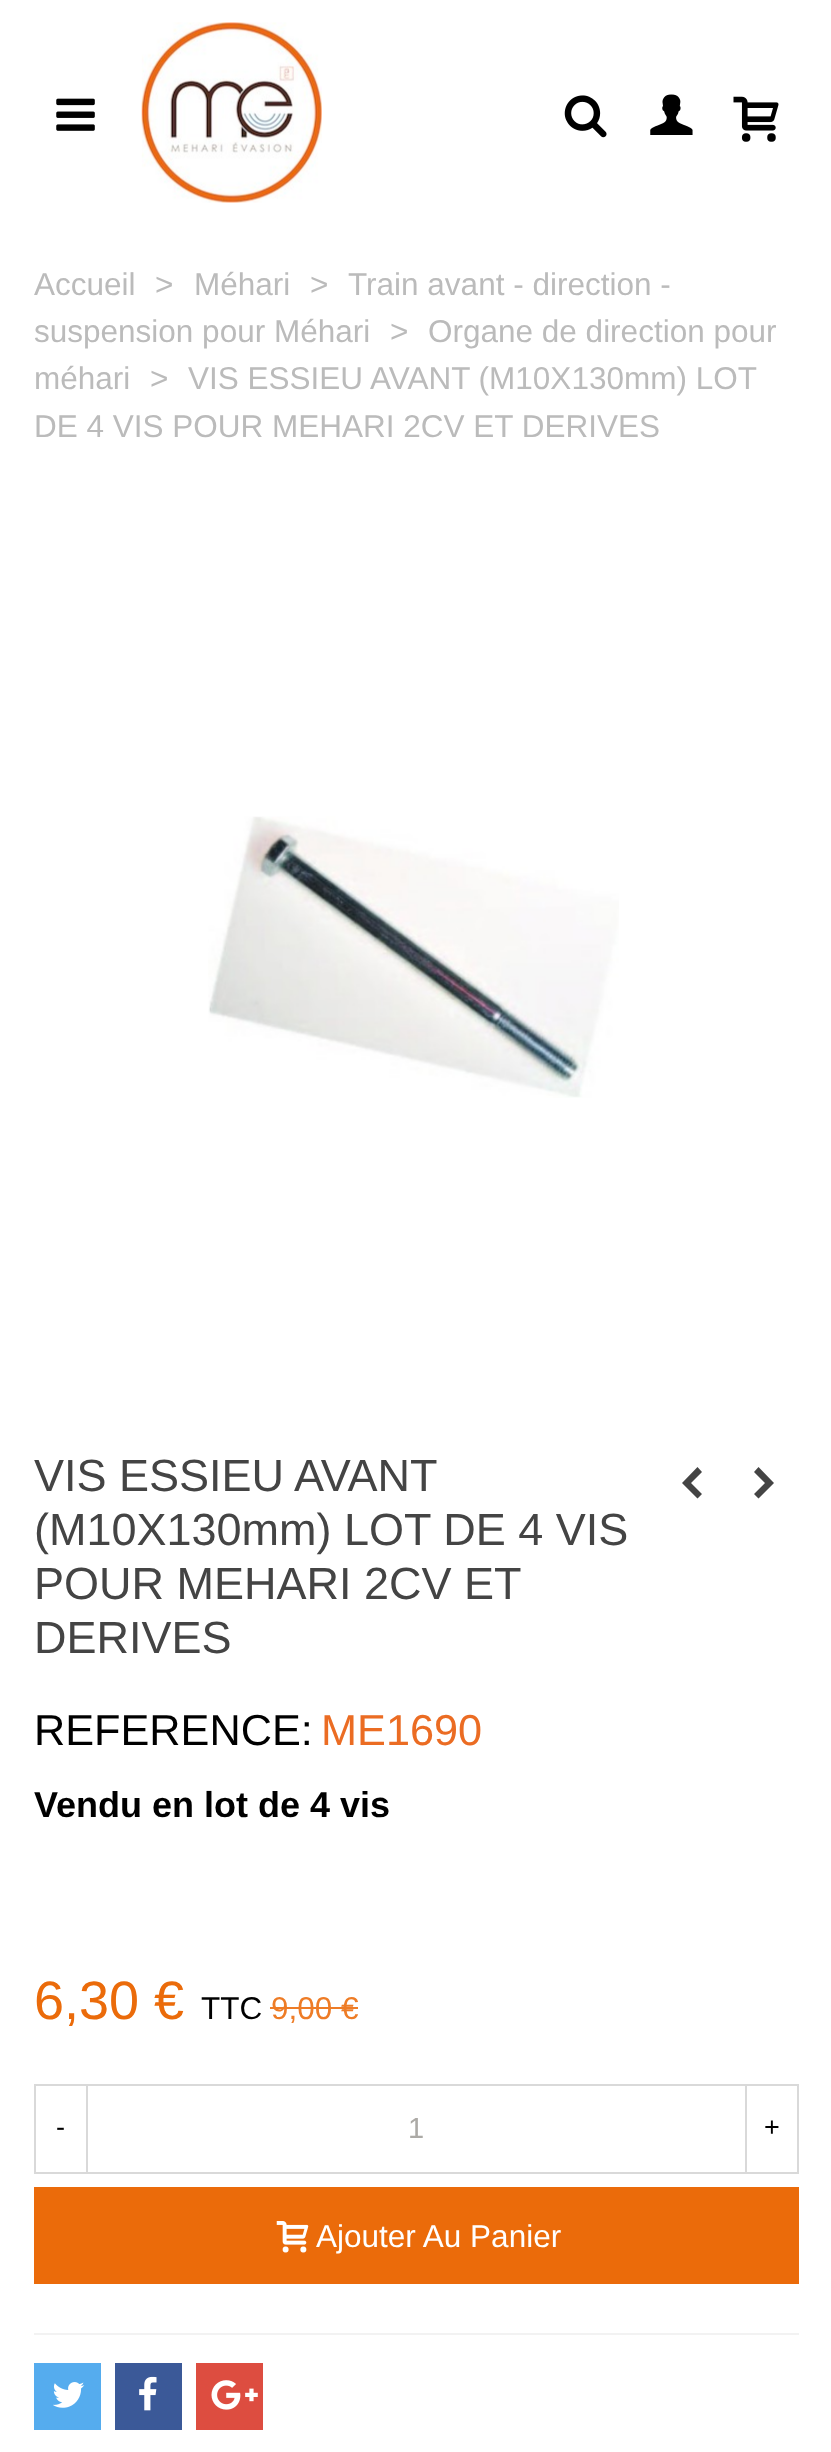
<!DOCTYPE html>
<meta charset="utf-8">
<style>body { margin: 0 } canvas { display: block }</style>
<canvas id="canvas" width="831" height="2452"></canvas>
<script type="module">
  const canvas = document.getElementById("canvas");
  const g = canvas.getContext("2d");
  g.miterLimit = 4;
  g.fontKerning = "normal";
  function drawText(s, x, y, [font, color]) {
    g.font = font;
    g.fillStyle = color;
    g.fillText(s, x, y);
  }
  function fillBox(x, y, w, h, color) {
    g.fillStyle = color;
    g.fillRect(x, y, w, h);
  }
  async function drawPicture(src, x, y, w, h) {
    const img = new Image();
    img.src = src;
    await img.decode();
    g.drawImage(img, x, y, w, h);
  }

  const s1 = ["31.5px Liberation Sans", "#BBBBBB"];
  const s2 = ["45px Liberation Sans", "#444444"];
  const s3 = ["43.25px Liberation Sans", "#000000"];
  const s4 = ["43.25px Liberation Sans", "#EB6C23"];
  const s5 = ["bold 36px Liberation Sans", "#000000"];
  const s6 = ["54px Liberation Sans", "#EB6B0A"];
  const s7 = ["31.5px Liberation Sans", "#000000"];
  const s8 = ["31.5px Liberation Sans", "#EE7C26"];
  const s9 = ["27px Liberation Sans", "#000000"];
  const s10 = ["29px Liberation Sans", "#ACAAA6"];
  const s11 = ["31.5px Liberation Sans", "#FFFFFF"];

  fillBox(0, 0, 831, 2452, "#FFFFFF");
  await drawPicture("pic1.png", 56, 98, 39, 33);
  await drawPicture("pic2.png", 141, 22, 181, 181);
  await drawPicture("pic3.png", 564, 95, 43, 43);
  await drawPicture("pic4.png", 650, 94, 43, 41);
  await drawPicture("pic5.png", 733, 96, 46, 46);
  drawText("Accueil", 34, 295, s1);
  drawText(">", 155, 295, s1);
  drawText("Méhari", 194, 295, s1);
  drawText(">", 310, 295, s1);
  drawText("Train avant - direction -", 348, 295, s1);
  drawText("suspension pour Méhari", 34, 342, s1);
  drawText(">", 390, 342, s1);
  drawText("Organe de direction pour", 428, 342, s1);
  drawText("méhari", 34, 389, s1);
  drawText(">", 150, 389, s1);
  drawText("VIS ESSIEU AVANT (M10X130mm) LOT", 188, 389, s1);
  drawText("DE 4 VIS POUR MEHARI 2CV ET DERIVES", 34, 437, s1);
  await drawPicture("pic6.png", 208, 816, 411, 282);
  drawText("VIS ESSIEU AVANT", 34, 1491, s2);
  drawText("(M10X130mm) LOT DE 4 VIS", 34, 1545, s2);
  drawText("POUR MEHARI 2CV ET", 34, 1599, s2);
  drawText("DERIVES", 34, 1653, s2);
  g.beginPath();
  g.moveTo(682, 1483);
  g.lineTo(697.5, 1467);
  g.lineTo(702, 1472);
  g.lineTo(691, 1483);
  g.lineTo(702, 1494);
  g.lineTo(697.5, 1498.5);
  g.closePath();
  g.fill();
  g.beginPath();
  g.moveTo(754, 1494);
  g.lineTo(765, 1483);
  g.lineTo(754, 1472);
  g.lineTo(758.5, 1467);
  g.lineTo(774, 1483);
  g.lineTo(758.5, 1498.5);
  g.closePath();
  g.fill();
  drawText("REFERENCE:", 34, 1745, s3);
  drawText("ME1690", 321, 1745, s4);
  drawText("Vendu en lot de 4 vis", 34, 1817, s5);
  drawText("6,30 €", 34, 2019, s6);
  drawText("TTC", 201, 2019, s7);
  drawText("9,00 €", 271, 2019, s8);
  fillBox(270, 2007, 88, 2, "#EE7C26");
  g.strokeStyle = "#D9D9D9";
  g.lineWidth = 2;
  g.strokeRect(35, 2085, 52, 88);
  drawText("-", 56, 2136, s9);
  g.strokeRect(87, 2085, 659, 88);
  drawText("1", 408, 2138, s10);
  g.strokeRect(746, 2085, 52, 88);
  drawText("+", 764, 2136, s9);
  fillBox(34, 2187, 765, 97, "#EB6B0A");
  await drawPicture("pic7.png", 276, 2221, 33, 32);
  drawText("Ajouter Au Panier", 316, 2247, s11);
  fillBox(34, 2333, 765, 2, "#F2F2F2");
  fillBox(34, 2363, 67, 67, "#55ACEE");
  await drawPicture("pic8.png", 53, 2382, 32, 26);
  fillBox(115, 2363, 67, 67, "#3B5998");
  await drawPicture("pic9.png", 139, 2376, 18, 35);
  fillBox(196, 2363, 67, 67, "#DD4D40");
  await drawPicture("pic10.png", 211, 2380, 47, 30);
</script>
